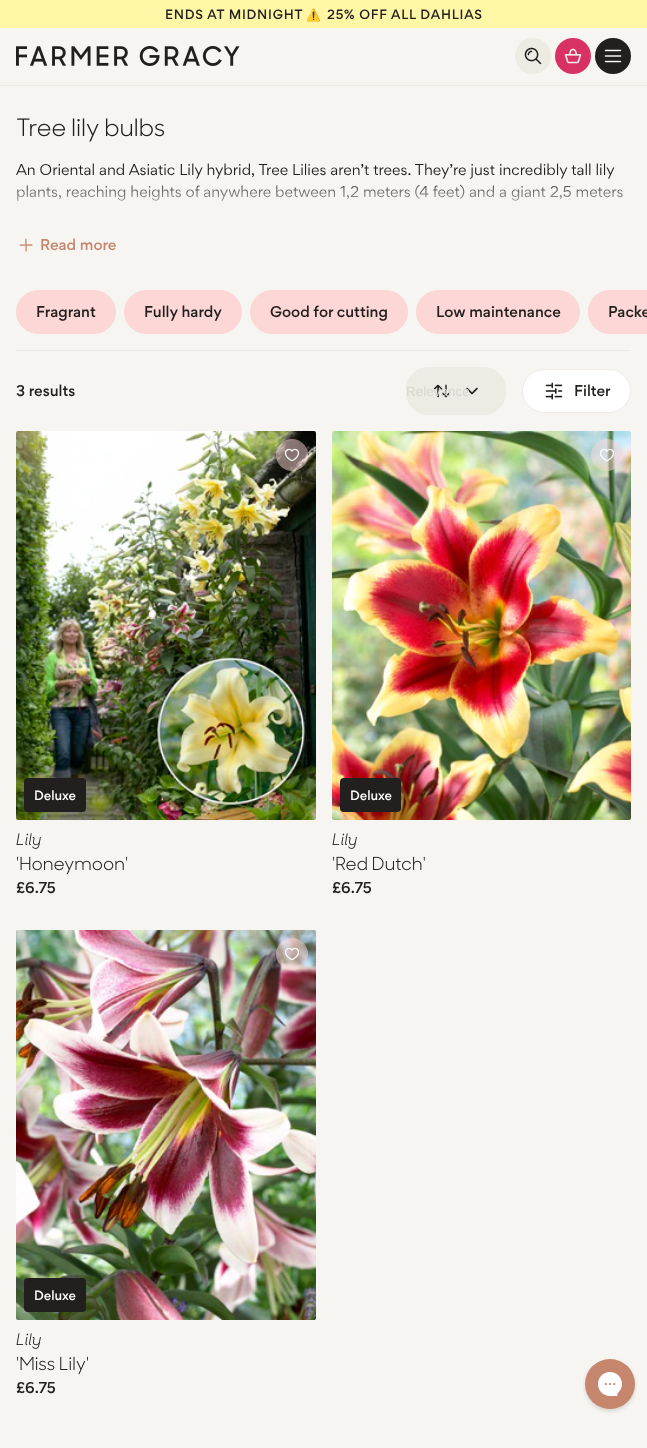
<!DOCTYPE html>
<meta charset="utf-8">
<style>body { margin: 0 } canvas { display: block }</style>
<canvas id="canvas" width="647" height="1448"></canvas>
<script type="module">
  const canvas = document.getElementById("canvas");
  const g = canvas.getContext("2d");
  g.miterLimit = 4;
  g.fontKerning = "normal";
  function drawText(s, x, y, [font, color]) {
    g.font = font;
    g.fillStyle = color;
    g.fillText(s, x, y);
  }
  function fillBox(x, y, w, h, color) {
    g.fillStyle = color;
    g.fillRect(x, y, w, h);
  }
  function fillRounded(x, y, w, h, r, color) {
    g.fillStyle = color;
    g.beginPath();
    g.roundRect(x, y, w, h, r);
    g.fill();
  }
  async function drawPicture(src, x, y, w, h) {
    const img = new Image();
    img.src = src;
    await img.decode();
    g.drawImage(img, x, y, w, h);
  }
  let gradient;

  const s1 = ["500 12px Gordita", "#21201E"];
  const s2 = ["12px Noto Color Emoji", "#21201E"];
  const s3 = ["14px Gordita", "#21201E"];
  const s4 = ["500 14px Gordita", "#C5866D"];
  const s5 = ["500 14px Gordita", "#21201E"];
  const s6 = ["13.5px Liberation Sans", "#D9D6D0"];
  const s7 = ["500 12px Gordita", "#FFFFFF"];

  fillBox(0, 0, 647, 1448, "#F7F5F1");
  fillBox(0, 0, 647, 28, "#FFF6A6");
  g.letterSpacing = "0.75px";
  drawText("ENDS AT MIDNIGHT", 165, 19, s1);
  drawText("⚠️", 306, 19, s2);
  drawText("25% OFF ALL DAHLIAS", 327, 19, s1);
  fillBox(0, 85, 647, 1, "#EEEBE4");
  await drawPicture("pic1.png", 16, 46, 224, 20);
  g.beginPath();
  g.arc(533, 56, 18, 0, Math.PI * 2);
  g.fill();
  await drawPicture("pic2.png", 524, 47, 18, 18);
  g.fillStyle = "#D83163";
  g.beginPath();
  g.arc(573, 56, 18, 0, Math.PI * 2);
  g.fill();
  await drawPicture("pic3.png", 564, 48, 18, 16);
  g.fillStyle = "#21201E";
  g.beginPath();
  g.arc(613, 56, 18, 0, Math.PI * 2);
  g.fill();
  await drawPicture("pic4.png", 604, 49, 18, 14);
  await drawPicture("pic5.png", 17, 118, 148, 24);
  g.letterSpacing = "0px";
  drawText("An Oriental and Asiatic Lily hybrid, Tree Lilies aren’t trees. They’re just incredibly tall lily", 16, 175, s3);
  drawText("plants, reaching heights of anywhere between 1,2 meters (4 feet) and a giant 2,5 meters", 16, 197, s3);
  gradient = g.createLinearGradient(324, 176, 324, 224);
  gradient.addColorStop(0, "rgba(247, 245, 241, 0)");
  gradient.addColorStop(0.9, "#F7F5F1");
  g.fillStyle = gradient;
  g.fillRect(17, 177, 606, 24);
  await drawPicture("pic6.png", 19, 238, 14, 14);
  drawText("Read more", 40, 250, s4);
  fillBox(16, 350, 615, 1, "#E9E9E9");
  g.fillStyle = "#FCD7D5";
  g.beginPath();
  g.roundRect(16.5, 290.5, 99, 43, 21.5);
  g.fill();
  g.strokeStyle = "#FCD7D5";
  g.stroke();
  drawText("Fragrant", 36, 317, s5);
  g.fillStyle = "#FCD7D5";
  g.beginPath();
  g.roundRect(124.5, 290.5, 117, 43, 21.5);
  g.fill();
  g.stroke();
  drawText("Fully hardy", 144, 317, s5);
  g.fillStyle = "#FCD7D5";
  g.beginPath();
  g.roundRect(250.5, 290.5, 157, 43, 21.5);
  g.fill();
  g.stroke();
  drawText("Good for cutting", 270, 317, s5);
  g.fillStyle = "#FCD7D5";
  g.beginPath();
  g.roundRect(416.5, 290.5, 163, 43, 21.5);
  g.fill();
  g.stroke();
  drawText("Low maintenance", 436, 317, s5);
  g.fillStyle = "#FCD7D5";
  g.beginPath();
  g.roundRect(588, 290, 59, 44, [22, 0, 0, 22]);
  g.fill();
  g.beginPath();
  g.roundRect(588.5, 290.5, 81, 43, 21.5);
  g.stroke();
  drawText("Packe", 608, 317, s5);
  drawText("3 results", 16, 396, s5);
  g.fillStyle = "#EEEBE4";
  g.beginPath();
  g.roundRect(406.5, 367.5, 99, 47, 21.5);
  g.fill();
  g.strokeStyle = "#EEEBE4";
  g.stroke();
  await drawPicture("pic7.png", 433, 384, 18, 14);
  await drawPicture("pic8.png", 466, 387, 12, 8);
  drawText("Relevance", 406, 396, s6);
  g.fillStyle = "#FFFFFF";
  g.beginPath();
  g.roundRect(522.5, 369.5, 108, 43, 21.5);
  g.fill();
  g.stroke();
  await drawPicture("pic9.png", 545, 382, 18, 18);
  drawText("Filter", 574, 396, s5);
  await drawPicture("pic11.png", 16, 431, 300, 389);
  g.fillStyle = "rgba(252, 214, 212, 0.5)";
  g.beginPath();
  g.arc(292, 455, 16, 0, Math.PI * 2);
  g.fill();
  await drawPicture("pic10.png", 284, 448, 16, 14);
  fillRounded(24, 778, 62, 34, 4, "#21201E");
  drawText("Deluxe", 34, 800, s7);
  await drawPicture("pic12.png", 16, 833, 25, 16);
  await drawPicture("pic13.png", 17, 856, 111, 19);
  drawText("£6.75", 16, 893, s5);
  await drawPicture("pic15.png", 332, 431, 299, 389);
  g.fillStyle = "rgba(252, 214, 212, 0.5)";
  g.beginPath();
  g.arc(607, 455, 16, 0, Math.PI * 2);
  g.fill();
  await drawPicture("pic14.png", 600, 448, 14, 14);
  fillRounded(340, 778, 61, 34, 4, "#21201E");
  drawText("Deluxe", 350, 800, s7);
  await drawPicture("pic12.png", 332, 833, 25, 16);
  await drawPicture("pic16.png", 333, 856, 92, 15);
  drawText("£6.75", 332, 893, s5);
  await drawPicture("pic18.png", 16, 930, 300, 390);
  g.fillStyle = "rgba(252, 214, 212, 0.5)";
  g.beginPath();
  g.arc(292, 954, 16, 0, Math.PI * 2);
  g.fill();
  await drawPicture("pic17.png", 285, 947, 14, 14);
  fillRounded(24, 1278, 62, 34, 4, "#21201E");
  drawText("Deluxe", 34, 1300, s7);
  await drawPicture("pic12.png", 16, 1333, 25, 16);
  await drawPicture("pic19.png", 17, 1356, 71, 19);
  drawText("£6.75", 16, 1393, s5);
  await drawPicture("pic20.png", 583, 1359, 54, 54);
</script>
